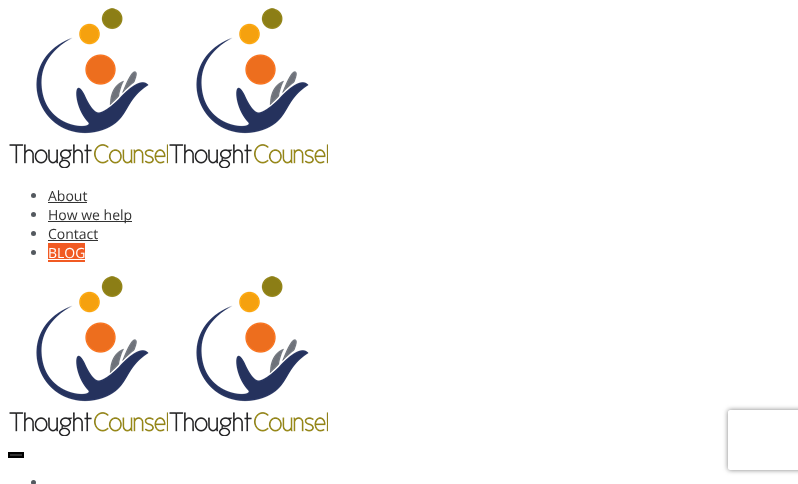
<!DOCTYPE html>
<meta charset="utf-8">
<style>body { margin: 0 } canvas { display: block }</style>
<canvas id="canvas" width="798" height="484"></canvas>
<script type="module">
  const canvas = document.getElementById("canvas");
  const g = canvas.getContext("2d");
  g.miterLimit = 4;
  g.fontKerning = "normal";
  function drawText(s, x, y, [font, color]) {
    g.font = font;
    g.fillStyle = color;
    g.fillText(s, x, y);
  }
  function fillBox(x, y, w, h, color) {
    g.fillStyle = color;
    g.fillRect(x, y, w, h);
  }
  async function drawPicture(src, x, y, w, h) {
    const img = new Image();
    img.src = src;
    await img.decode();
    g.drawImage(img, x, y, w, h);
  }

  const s1 = ["14px Open Sans", "#333333"];
  const s2 = ["14px Open Sans", "#FFFFFF"];

  fillBox(0, 0, 798, 484, "#FFFFFF");
  await drawPicture("pic1.png", 9, 8, 159, 160);
  await drawPicture("pic1.png", 169, 8, 159, 160);
  g.fillStyle = "#54595F";
  g.beginPath();
  g.arc(33.5, 195.5, 2.5, 0, Math.PI * 2);
  g.fill();
  drawText("About", 48, 201, s1);
  fillBox(48, 202, 39, 1, "#333333");
  g.fillStyle = "#54595F";
  g.beginPath();
  g.arc(33.5, 214.5, 2.5, 0, Math.PI * 2);
  g.fill();
  fillBox(48, 221, 84, 1, "#333333");
  drawText("How we help", 48, 220, s1);
  g.fillStyle = "#54595F";
  g.beginPath();
  g.arc(33.5, 233.5, 2.5, 0, Math.PI * 2);
  g.fill();
  drawText("Contact", 48, 239, s1);
  fillBox(48, 240, 50, 1, "#333333");
  g.fillStyle = "#54595F";
  g.beginPath();
  g.arc(33.5, 252.5, 2.5, 0, Math.PI * 2);
  g.fill();
  fillBox(48, 243, 37, 19, "#F15A23");
  drawText("BLOG", 48, 258, s2);
  fillBox(48, 259, 37, 1, "#FFFFFF");
  await drawPicture("pic1.png", 9, 276, 159, 160);
  await drawPicture("pic1.png", 169, 276, 159, 160);
  g.fillStyle = "#333333";
  g.beginPath();
  g.rect(9, 453, 14, 4);
  g.fill();
  g.strokeStyle = "#000000";
  g.lineWidth = 2;
  g.stroke();
  g.fillStyle = "#54595F";
  g.beginPath();
  g.arc(33.5, 482.5, 2.5, 0, Math.PI * 2);
  g.fill();
  g.save();
  g.beginPath();
  g.moveTo(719, 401);
  g.lineTo(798, 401);
  g.lineTo(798, 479);
  g.lineTo(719, 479);
  g.closePath();
  g.moveTo(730, 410);
  g.lineTo(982, 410);
  g.bezierCurveTo(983, 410, 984, 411, 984, 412);
  g.lineTo(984, 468);
  g.bezierCurveTo(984, 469, 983, 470, 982, 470);
  g.lineTo(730, 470);
  g.bezierCurveTo(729, 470, 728, 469, 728, 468);
  g.lineTo(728, 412);
  g.bezierCurveTo(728, 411, 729, 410, 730, 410);
  g.closePath();
  g.clip("evenodd");
  g.fillStyle = "#808080";
  g.filter = "blur(2.5px)";
  g.beginPath();
  g.roundRect(728, 410, 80, 60, 2);
  g.fill();
  g.filter = "none";
  g.restore();
</script>
